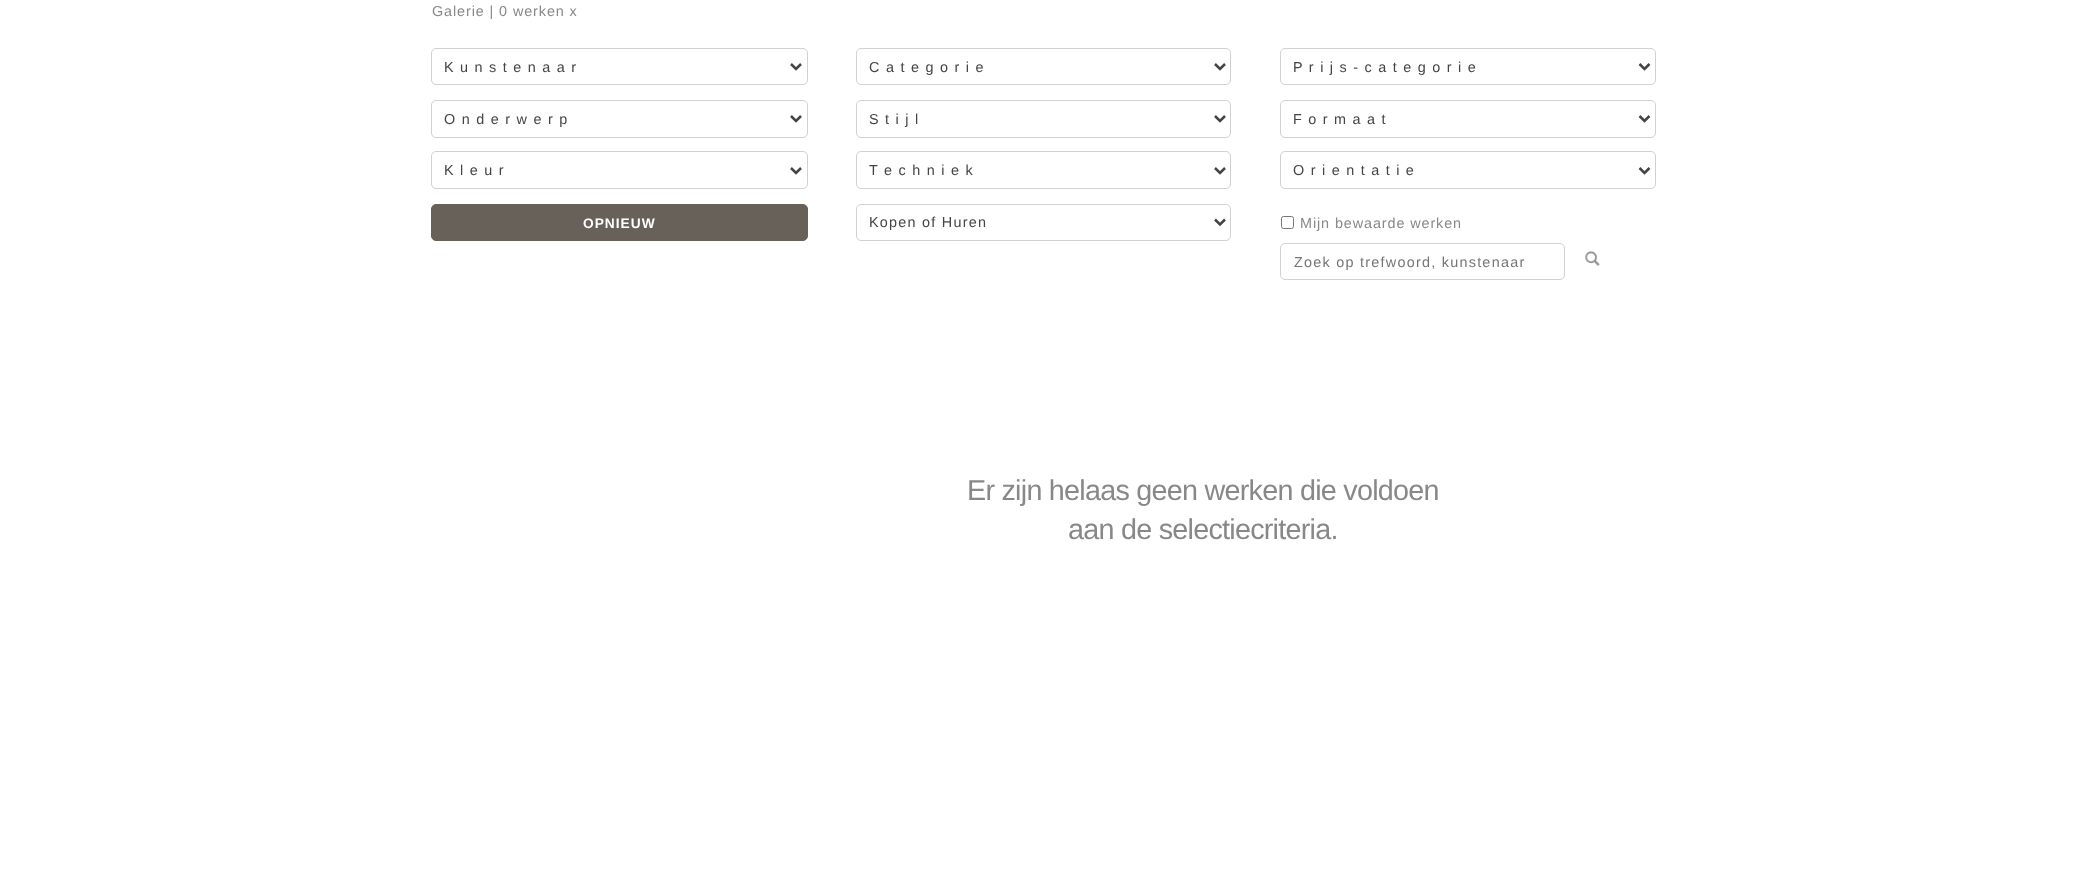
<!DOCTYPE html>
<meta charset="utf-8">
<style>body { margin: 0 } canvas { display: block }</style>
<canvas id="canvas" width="2087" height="874"></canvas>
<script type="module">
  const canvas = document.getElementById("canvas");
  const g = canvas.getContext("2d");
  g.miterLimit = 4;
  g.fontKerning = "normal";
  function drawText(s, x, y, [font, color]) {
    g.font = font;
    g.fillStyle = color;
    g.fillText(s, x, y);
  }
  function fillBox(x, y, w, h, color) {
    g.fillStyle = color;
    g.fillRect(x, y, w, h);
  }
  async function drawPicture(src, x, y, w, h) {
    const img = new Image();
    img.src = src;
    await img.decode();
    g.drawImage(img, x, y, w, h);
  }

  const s1 = ["14.4px Liberation Sans", "#888888"];
  const s2 = ["14.4px Liberation Sans", "#444444"];
  const s3 = ["bold 13.75px Liberation Sans", "#FFFFFF"];
  const s4 = ["14.4px Liberation Sans", "#757575"];
  const s5 = ["28.75px Liberation Sans", "#888888"];

  fillBox(0, 0, 2087, 874, "#FFFFFF");
  g.letterSpacing = "0.9px";
  drawText("Galerie | 0 werken x", 432, 16, s1);
  g.beginPath();
  g.roundRect(431.5, 48.5, 376, 36, 4.5);
  g.strokeStyle = "#D1D1D1";
  g.stroke();
  g.beginPath();
  g.moveTo(791, 64);
  g.lineTo(796, 69);
  g.lineTo(801, 64);
  g.strokeStyle = "#444444";
  g.lineWidth = 2.5;
  g.stroke();
  g.letterSpacing = "1.25px";
  drawText("K u n s t e n a a r", 444, 72, s2);
  g.beginPath();
  g.roundRect(856.5, 48.5, 374, 36, 4.5);
  g.strokeStyle = "#D1D1D1";
  g.lineWidth = 1;
  g.stroke();
  g.beginPath();
  g.moveTo(1215, 64);
  g.lineTo(1220, 69);
  g.lineTo(1225, 64);
  g.strokeStyle = "#444444";
  g.lineWidth = 2.5;
  g.stroke();
  drawText("C a t e g o r i e", 869, 72, s2);
  g.beginPath();
  g.roundRect(1280.5, 48.5, 375, 36, 4.5);
  g.strokeStyle = "#D1D1D1";
  g.lineWidth = 1;
  g.stroke();
  g.beginPath();
  g.moveTo(1639.5, 64);
  g.lineTo(1644.5, 69);
  g.lineTo(1649.5, 64);
  g.strokeStyle = "#444444";
  g.lineWidth = 2.5;
  g.stroke();
  drawText("P r i j s - c a t e g o r i e", 1293, 72, s2);
  g.beginPath();
  g.roundRect(431.5, 100.5, 376, 37, 4.5);
  g.strokeStyle = "#D1D1D1";
  g.lineWidth = 1;
  g.stroke();
  g.beginPath();
  g.moveTo(791, 116);
  g.lineTo(796, 121);
  g.lineTo(801, 116);
  g.strokeStyle = "#444444";
  g.lineWidth = 2.5;
  g.stroke();
  drawText("O n d e r w e r p", 444, 124, s2);
  g.beginPath();
  g.roundRect(856.5, 100.5, 374, 37, 4.5);
  g.strokeStyle = "#D1D1D1";
  g.lineWidth = 1;
  g.stroke();
  g.beginPath();
  g.moveTo(1215, 116);
  g.lineTo(1220, 121);
  g.lineTo(1225, 116);
  g.strokeStyle = "#444444";
  g.lineWidth = 2.5;
  g.stroke();
  drawText("S t i j l", 869, 124, s2);
  g.beginPath();
  g.roundRect(1280.5, 100.5, 375, 37, 4.5);
  g.strokeStyle = "#D1D1D1";
  g.lineWidth = 1;
  g.stroke();
  g.beginPath();
  g.moveTo(1639.5, 116);
  g.lineTo(1644.5, 121);
  g.lineTo(1649.5, 116);
  g.strokeStyle = "#444444";
  g.lineWidth = 2.5;
  g.stroke();
  drawText("F o r m a a t", 1293, 124, s2);
  g.beginPath();
  g.roundRect(431.5, 151.5, 376, 37, 4.5);
  g.strokeStyle = "#D1D1D1";
  g.lineWidth = 1;
  g.stroke();
  g.beginPath();
  g.moveTo(791, 168);
  g.lineTo(796, 173);
  g.lineTo(801, 168);
  g.strokeStyle = "#444444";
  g.lineWidth = 2.5;
  g.stroke();
  drawText("K l e u r", 444, 175, s2);
  g.beginPath();
  g.roundRect(856.5, 151.5, 374, 37, 4.5);
  g.strokeStyle = "#D1D1D1";
  g.lineWidth = 1;
  g.stroke();
  g.beginPath();
  g.moveTo(1215, 168);
  g.lineTo(1220, 173);
  g.lineTo(1225, 168);
  g.strokeStyle = "#444444";
  g.lineWidth = 2.5;
  g.stroke();
  drawText("T e c h n i e k", 869, 175, s2);
  g.beginPath();
  g.roundRect(1280.5, 151.5, 375, 37, 4.5);
  g.strokeStyle = "#D1D1D1";
  g.lineWidth = 1;
  g.stroke();
  g.beginPath();
  g.moveTo(1639.5, 168);
  g.lineTo(1644.5, 173);
  g.lineTo(1649.5, 168);
  g.strokeStyle = "#444444";
  g.lineWidth = 2.5;
  g.stroke();
  drawText("O r i e n t a t i e", 1293, 175, s2);
  g.fillStyle = "#67615A";
  g.beginPath();
  g.roundRect(431.5, 204.5, 376, 36, 4.5);
  g.fill();
  g.strokeStyle = "#67615A";
  g.lineWidth = 1;
  g.stroke();
  g.letterSpacing = "1px";
  drawText("OPNIEUW", 583, 228, s3);
  g.beginPath();
  g.roundRect(856.5, 204.5, 374, 36, 4.5);
  g.strokeStyle = "#D1D1D1";
  g.stroke();
  g.beginPath();
  g.moveTo(1215, 219.5);
  g.lineTo(1220, 224.5);
  g.lineTo(1225, 219.5);
  g.strokeStyle = "#444444";
  g.lineWidth = 2.5;
  g.stroke();
  g.letterSpacing = "1.25px";
  drawText("Kopen of Huren", 869, 227, s2);
  g.beginPath();
  g.roundRect(1281.5, 216.5, 12, 12, 2);
  g.strokeStyle = "#767676";
  g.lineWidth = 1;
  g.stroke();
  g.letterSpacing = "0.9px";
  drawText("Mijn bewaarde werken", 1300, 228, s1);
  g.beginPath();
  g.roundRect(1280.5, 243.5, 284, 36, 4.5);
  g.strokeStyle = "#D1D1D1";
  g.stroke();
  g.letterSpacing = "1.25px";
  drawText("Zoek op trefwoord, kunstenaar", 1294, 267, s4);
  await drawPicture("pic1.png", 1585, 251, 15, 16);
  g.letterSpacing = "-0.75px";
  drawText("Er zijn helaas geen werken die voldoen", 967, 500, s5);
  drawText("aan de selectiecriteria.", 1068, 539, s5);
</script>
